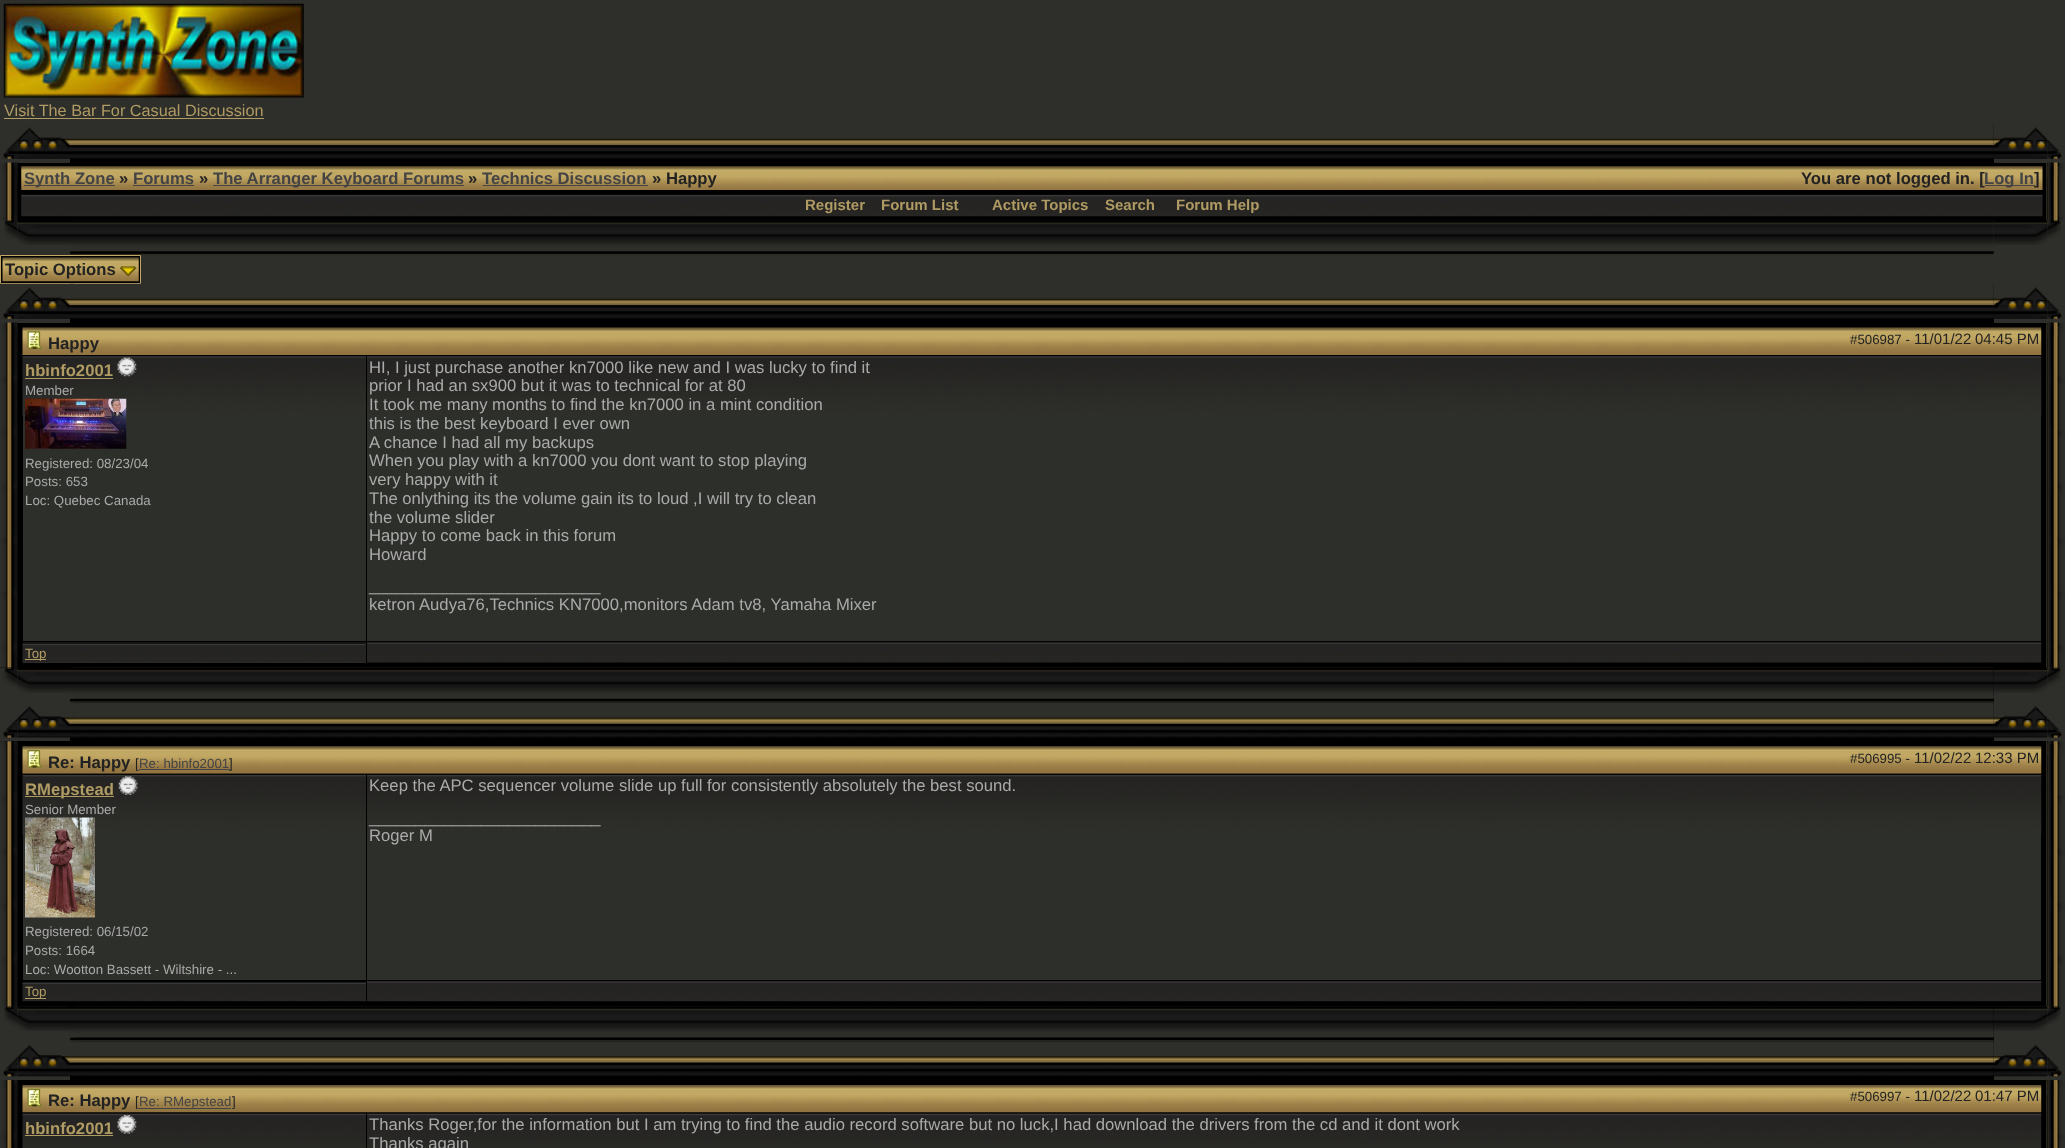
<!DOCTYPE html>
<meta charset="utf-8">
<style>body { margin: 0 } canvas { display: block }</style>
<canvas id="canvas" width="2065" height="1148"></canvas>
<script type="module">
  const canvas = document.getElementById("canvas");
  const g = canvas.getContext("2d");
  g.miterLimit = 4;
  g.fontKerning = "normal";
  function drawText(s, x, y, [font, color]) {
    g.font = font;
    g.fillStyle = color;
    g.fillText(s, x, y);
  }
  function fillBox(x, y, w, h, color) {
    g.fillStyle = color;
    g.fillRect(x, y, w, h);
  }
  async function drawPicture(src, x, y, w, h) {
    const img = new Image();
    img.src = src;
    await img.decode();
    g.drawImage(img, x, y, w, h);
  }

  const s1 = ["16.25px Liberation Sans", "#AF9B63"];
  const s2 = ["bold 16.67px Liberation Sans", "#444444"];
  const s3 = ["bold 16.67px Liberation Sans", "#222222"];
  const s4 = ["bold 15px Liberation Sans", "#AF9B63"];
  const s5 = ["13.3px Liberation Sans", "#222222"];
  const s6 = ["15px Liberation Sans", "#222222"];
  const s7 = ["bold 16.67px Liberation Sans", "#AF9B63"];
  const s8 = ["13.3px Liberation Sans", "#AAAAAA"];
  const s9 = ["16.67px Liberation Sans", "#AAAAAA"];
  const s10 = ["13.3px Liberation Sans", "#AF9B63"];
  const s11 = ["13.3px Liberation Sans", "#444444"];

  fillBox(0, 0, 2065, 1148, "#2E2F2B");
  await drawPicture("pic1.png", 3, 3, 301, 95);
  drawText("Visit The Bar For Casual Discussion", 4, 116, s1);
  fillBox(4, 118, 260, 1, "#AF9B63");
  await drawPicture("pic2.png", 3, 140, 15, 19);
  await drawPicture("pic3.png", 17, 127, 53, 32);
  fillBox(70, 124, 1924, 39, "#000000");
  await drawPicture("pic4.png", 70, 124, 1924, 35);
  await drawPicture("pic5.png", 1993, 127, 55, 32);
  await drawPicture("pic6.png", 2047, 139, 15, 20);
  fillBox(17, 163, 2031, 57, "#000000");
  await drawPicture("pic7.png", 0, 162, 18, 58);
  await drawPicture("pic8.png", 6, 165, 12, 12);
  await drawPicture("pic9.png", 2047, 162, 18, 58);
  await drawPicture("pic10.png", 2047, 165, 12, 13);
  fillBox(2046, 163, 1, 57, "#2C291F");
  await drawPicture("pic11.png", 21, 166, 2022, 24);
  fillBox(24, 185, 91, 1, "#444444");
  drawText("Synth Zone", 24, 184, s2);
  drawText("»", 119, 184, s3);
  drawText("Forums", 133, 184, s2);
  fillBox(133, 185, 61, 1, "#444444");
  drawText("»", 199, 184, s3);
  fillBox(213, 185, 251, 1, "#444444");
  drawText("The Arranger Keyboard Forums", 213, 184, s2);
  drawText("»", 468, 184, s3);
  drawText("Technics Discussion", 482, 184, s2);
  fillBox(483, 185, 165, 1, "#444444");
  drawText("» Happy", 652, 184, s3);
  drawText("You are not logged in. [", 1801, 184, s3);
  fillBox(1985, 185, 50, 1, "#444444");
  drawText("Log In", 1984, 184, s2);
  drawText("]", 2034, 184, s3);
  await drawPicture("pic12.png", 21, 194, 2022, 23);
  drawText("Register", 805, 210, s4);
  drawText("Forum List", 881, 210, s4);
  drawText("Active Topics", 992, 210, s4);
  drawText("Search", 1105, 210, s4);
  drawText("Forum Help", 1176, 210, s4);
  await drawPicture("pic13.png", 4, 220, 14, 19);
  await drawPicture("pic14.png", 17, 220, 53, 25);
  await drawPicture("pic15.png", 70, 220, 1924, 35);
  await drawPicture("pic16.png", 70, 220, 4, 32);
  await drawPicture("pic17.png", 1994, 220, 54, 25);
  await drawPicture("pic18.png", 2047, 220, 14, 19);
  g.fillStyle = "#000000";
  g.beginPath();
  g.rect(0.5, 255.5, 140, 28);
  g.fill();
  g.strokeStyle = "#C1A864";
  g.stroke();
  await drawPicture("pic19.png", 2, 257, 137, 25);
  drawText("Topic Options", 5, 275, s3);
  await drawPicture("pic20.png", 120, 266, 17, 11);
  await drawPicture("pic21.png", 0, 283, 18, 36);
  await drawPicture("pic22.png", 17, 283, 53, 36);
  fillBox(70, 284, 1924, 39, "#000000");
  await drawPicture("pic23.png", 70, 283, 1924, 36);
  await drawPicture("pic24.png", 70, 283, 4, 1);
  await drawPicture("pic25.png", 1993, 287, 55, 32);
  await drawPicture("pic26.png", 2047, 299, 15, 20);
  fillBox(0, 323, 2048, 345, "#000000");
  await drawPicture("pic27.png", 0, 322, 18, 346);
  await drawPicture("pic8.png", 6, 325, 12, 12);
  await drawPicture("pic28.png", 2047, 322, 18, 346);
  await drawPicture("pic10.png", 2047, 325, 12, 13);
  fillBox(2046, 323, 1, 345, "#2C291F");
  await drawPicture("pic29.png", 22, 327, 2020, 28);
  await drawPicture("pic30.png", 27, 331, 15, 18);
  drawText("Happy", 48, 349, s3);
  drawText("#506987 -", 1850, 344, s5);
  drawText("11/01/22", 1914, 344, s6);
  drawText("04:45 PM", 1975, 344, s6);
  fillBox(23, 416, 343, 225, "#2D2F2B");
  await drawPicture("pic31.png", 22, 355, 344, 62);
  drawText("hbinfo2001", 25, 376, s7);
  fillBox(25, 378, 88, 1, "#AF9B63");
  await drawPicture("pic32.png", 117, 357, 20, 20);
  drawText("Member", 25, 395, s8);
  await drawPicture("pic33.png", 25, 398, 102, 51);
  drawText("Registered: 08/23/04", 25, 468, s8);
  drawText("Posts: 653", 25, 486, s8);
  drawText("Loc: Quebec Canada", 25, 505, s8);
  fillBox(367, 416, 1674, 225, "#2D2F2B");
  await drawPicture("pic34.png", 367, 355, 1675, 61);
  drawText("HI, I just purchase another kn7000 like new and I was lucky to find it", 369, 373, s9);
  drawText("prior I had an sx900 but it was to technical for at 80", 369, 391, s9);
  drawText("It took me many months to find the kn7000 in a mint condition", 369, 410, s9);
  drawText("this is the best keyboard I ever own", 369, 429, s9);
  drawText("A chance I had all my backups", 369, 448, s9);
  drawText("When you play with a kn7000 you dont want to stop playing", 369, 466, s9);
  drawText("very happy with it", 369, 485, s9);
  drawText("The onlything its the volume gain its to loud ,I will try to clean", 369, 504, s9);
  drawText("the volume slider", 369, 523, s9);
  drawText("Happy to come back in this forum", 369, 541, s9);
  drawText("Howard", 369, 560, s9);
  drawText("_________________________", 369, 591, s9);
  drawText("ketron Audya76,Technics KN7000,monitors Adam tv8, Yamaha Mixer", 369, 610, s9);
  fillBox(23, 642, 343, 21, "#2D2F2B");
  await drawPicture("pic35.png", 22, 642, 344, 21);
  fillBox(25, 659, 21, 1, "#AF9B63");
  drawText("Top", 25, 658, s10);
  fillBox(367, 641, 1674, 22, "#050505");
  await drawPicture("pic36.png", 367, 642, 1675, 21);
  await drawPicture("pic37.png", 0, 667, 18, 20);
  await drawPicture("pic38.png", 17, 668, 53, 25);
  fillBox(70, 668, 1924, 73, "#000000");
  await drawPicture("pic39.png", 70, 667, 1924, 36);
  await drawPicture("pic40.png", 70, 667, 4, 32);
  await drawPicture("pic41.png", 1994, 667, 54, 26);
  await drawPicture("pic42.png", 2047, 667, 18, 19);
  await drawPicture("pic43.png", 3, 718, 15, 20);
  await drawPicture("pic44.png", 17, 706, 53, 32);
  await drawPicture("pic45.png", 70, 702, 1924, 36);
  await drawPicture("pic46.png", 70, 702, 4, 22);
  await drawPicture("pic47.png", 1993, 706, 55, 32);
  await drawPicture("pic48.png", 2047, 717, 15, 21);
  fillBox(0, 741, 2048, 265, "#000000");
  await drawPicture("pic49.png", 0, 741, 18, 266);
  fillBox(14, 744, 4, 12, "#111111");
  await drawPicture("pic50.png", 2047, 741, 18, 266);
  await drawPicture("pic51.png", 2047, 744, 12, 12);
  fillBox(2046, 741, 1, 265, "#2C291F");
  await drawPicture("pic52.png", 22, 746, 2020, 28);
  await drawPicture("pic53.png", 27, 750, 15, 18);
  drawText("Re: Happy", 48, 768, s3);
  drawText("[", 135, 768, s5);
  fillBox(139, 769, 91, 1, "#444444");
  drawText("Re: hbinfo2001", 139, 768, s11);
  drawText("]", 229, 768, s5);
  drawText("#506995 -", 1850, 763, s5);
  drawText("11/02/22", 1914, 763, s6);
  drawText("12:33 PM", 1975, 763, s6);
  fillBox(23, 835, 343, 145, "#2D2F2B");
  await drawPicture("pic54.png", 22, 773, 345, 62);
  fillBox(25, 796, 89, 1, "#AF9B63");
  drawText("RMepstead", 25, 795, s7);
  await drawPicture("pic55.png", 118, 776, 20, 19);
  drawText("Senior Member", 25, 814, s8);
  await drawPicture("pic56.png", 25, 817, 70, 101);
  drawText("Registered: 06/15/02", 25, 936, s8);
  drawText("Posts: 1664", 25, 955, s8);
  drawText("Loc: Wootton Bassett - Wiltshire - ...", 25, 974, s8);
  fillBox(367, 835, 1674, 145, "#2D2F2B");
  await drawPicture("pic57.png", 366, 773, 1676, 62);
  fillBox(366, 774, 1, 61, "#000000");
  drawText("Keep the APC sequencer volume slide up full for consistently absolutely the best sound.", 369, 791, s9);
  drawText("_________________________", 369, 823, s9);
  drawText("Roger M", 369, 841, s9);
  await drawPicture("pic58.png", 22, 981, 345, 21);
  fillBox(25, 998, 21, 1, "#AF9B63");
  drawText("Top", 25, 996, s10);
  await drawPicture("pic59.png", 366, 980, 1676, 22);
  fillBox(366, 980, 1, 21, "#000000");
  await drawPicture("pic60.png", 4, 1006, 14, 20);
  await drawPicture("pic61.png", 17, 1006, 53, 25);
  fillBox(70, 1006, 1924, 74, "#000000");
  await drawPicture("pic62.png", 70, 1006, 1924, 35);
  await drawPicture("pic63.png", 70, 1006, 4, 32);
  await drawPicture("pic64.png", 1994, 1006, 54, 25);
  await drawPicture("pic65.png", 2047, 1006, 14, 19);
  await drawPicture("pic66.png", 3, 1057, 15, 20);
  await drawPicture("pic67.png", 17, 1045, 53, 32);
  await drawPicture("pic68.png", 70, 1041, 1924, 35);
  await drawPicture("pic69.png", 70, 1041, 4, 1);
  await drawPicture("pic70.png", 1993, 1045, 55, 32);
  await drawPicture("pic71.png", 2047, 1056, 15, 21);
  fillBox(17, 1080, 2031, 68, "#000000");
  await drawPicture("pic72.png", 0, 1080, 18, 68);
  await drawPicture("pic73.png", 6, 1083, 12, 12);
  await drawPicture("pic74.png", 2047, 1080, 18, 68);
  await drawPicture("pic75.png", 2047, 1082, 12, 13);
  fillBox(2046, 1080, 1, 68, "#2C291F");
  await drawPicture("pic76.png", 22, 1085, 2020, 28);
  await drawPicture("pic77.png", 27, 1088, 15, 19);
  drawText("Re: Happy", 48, 1106, s3);
  drawText("[", 135, 1106, s5);
  fillBox(139, 1108, 92, 1, "#444444");
  drawText("Re: RMepstead", 139, 1106, s11);
  drawText("]", 232, 1106, s5);
  drawText("#506997 -", 1850, 1101, s5);
  drawText("11/02/22", 1914, 1101, s6);
  drawText("01:47 PM", 1975, 1101, s6);
  await drawPicture("pic78.png", 22, 1112, 345, 36);
  drawText("hbinfo2001", 25, 1134, s7);
  fillBox(25, 1135, 88, 1, "#AF9B63");
  await drawPicture("pic79.png", 117, 1115, 20, 19);
  await drawPicture("pic80.png", 366, 1112, 1676, 36);
  fillBox(366, 1113, 1, 35, "#000000");
  drawText("Thanks Roger,for the information but I am trying to find the audio record software but no luck,I had download the drivers from the cd and it dont work", 369, 1130, s9);
  drawText("Thanks again", 369, 1149, s9);
</script>
